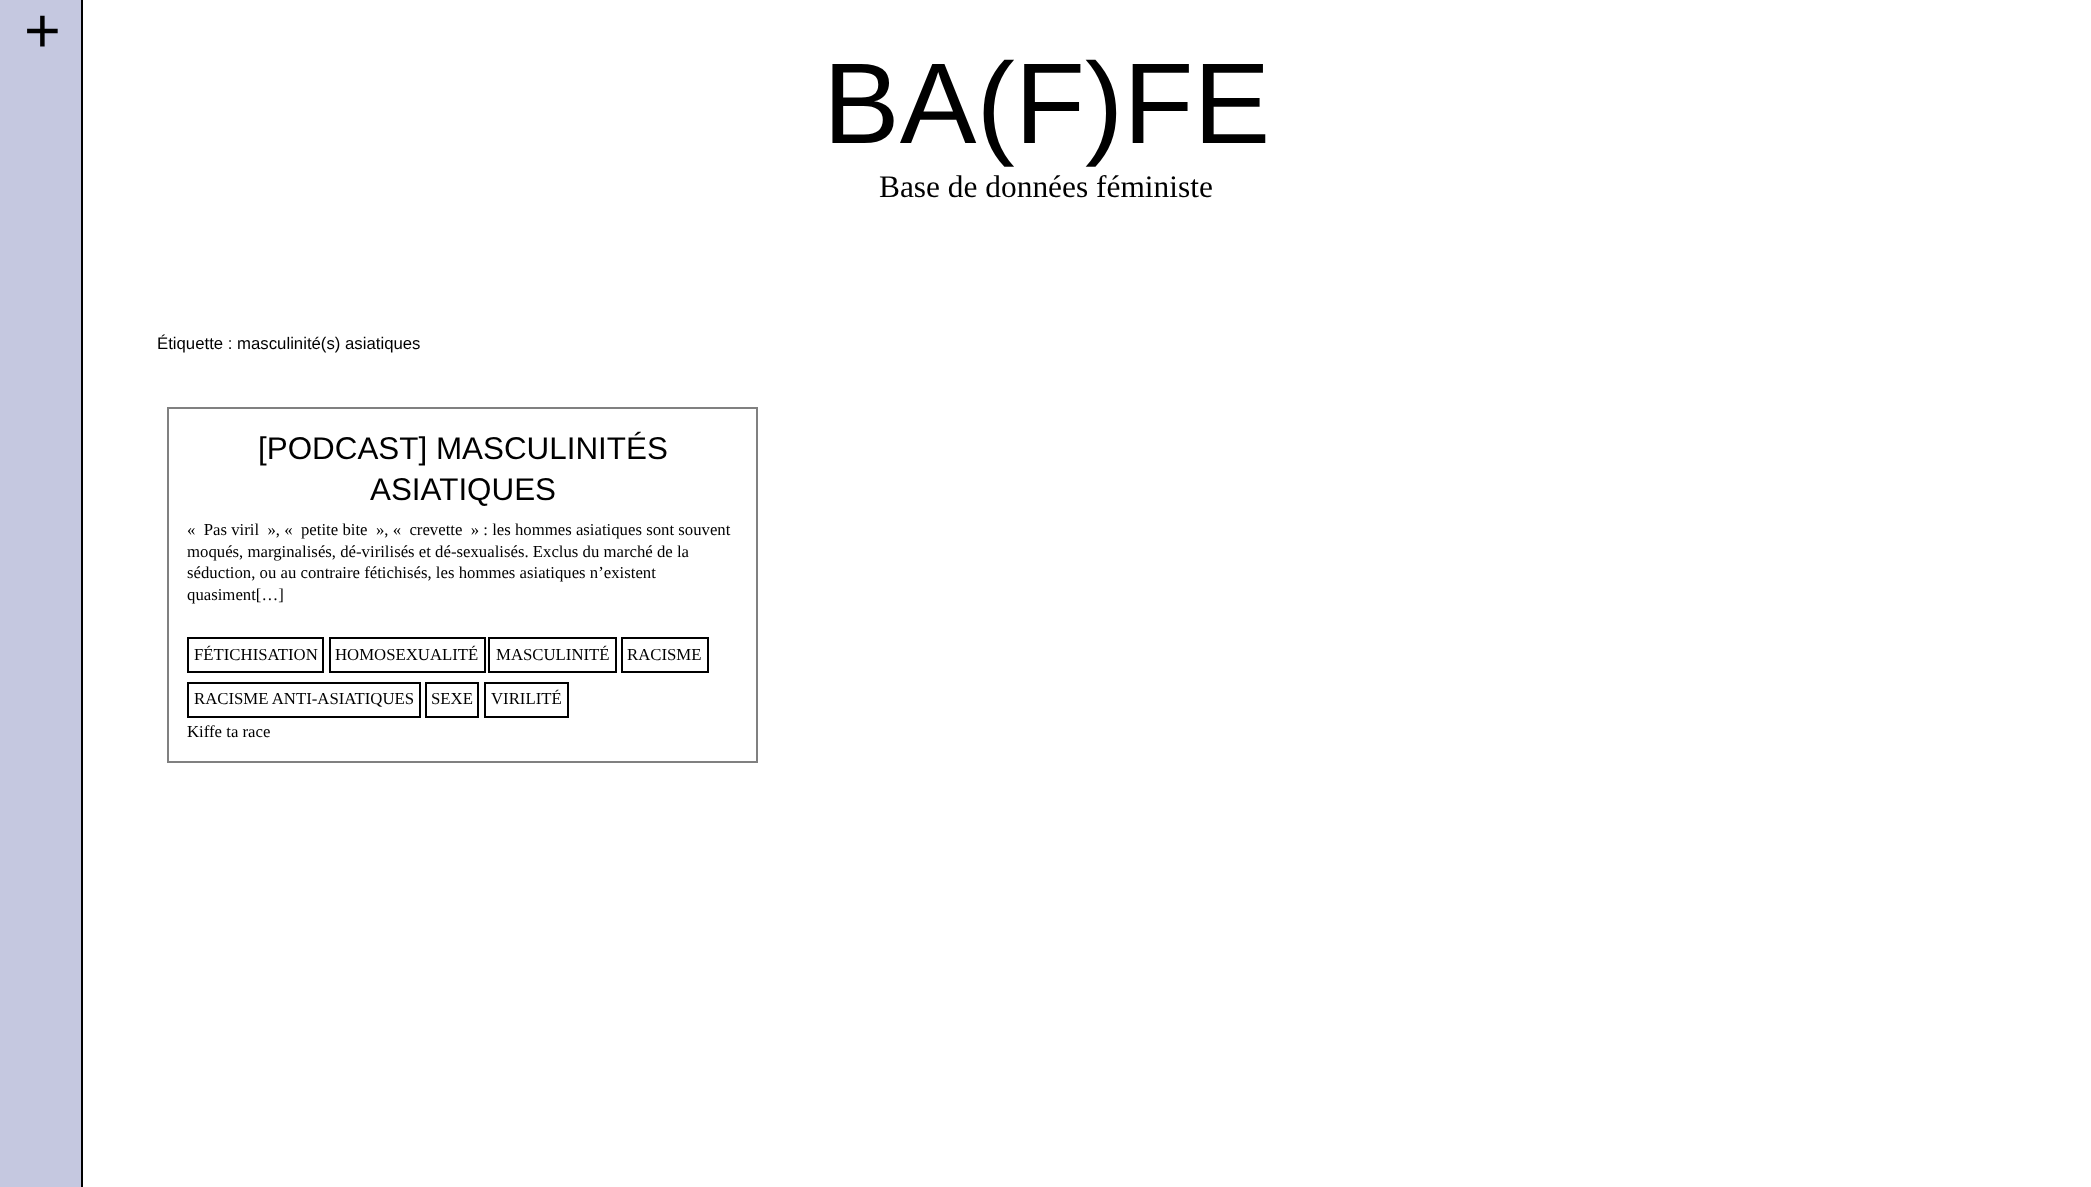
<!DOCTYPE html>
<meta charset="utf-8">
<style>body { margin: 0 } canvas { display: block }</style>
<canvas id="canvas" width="2091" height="1187"></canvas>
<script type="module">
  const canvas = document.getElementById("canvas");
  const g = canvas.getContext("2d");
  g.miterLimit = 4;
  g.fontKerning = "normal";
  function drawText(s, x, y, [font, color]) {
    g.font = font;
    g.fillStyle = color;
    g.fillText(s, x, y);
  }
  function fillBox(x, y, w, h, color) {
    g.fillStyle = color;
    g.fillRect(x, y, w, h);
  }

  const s1 = ["63px Liberation Sans", "#000000"];
  const s2 = ["115px Liberation Sans", "#000000"];
  const s3 = ["31.4px Liberation Serif", "#000000"];
  const s4 = ["16.75px Liberation Sans", "#000000"];
  const s5 = ["31.4px Liberation Sans", "#000000"];
  const s6 = ["16.75px Liberation Serif", "#000000"];

  fillBox(0, 0, 2091, 1187, "#FFFFFF");
  fillBox(0, 0, 81, 1187, "#C5C8E0");
  fillBox(81, 0, 2, 1187, "#000000");
  drawText("+", 24, 52, s1);
  drawText("BA(F)FE", 823, 143, s2);
  drawText("Base de données féministe", 879, 197, s3);
  drawText("Étiquette : masculinité(s) asiatiques", 157, 349, s4);
  g.strokeStyle = "#808080";
  g.lineWidth = 2;
  g.strokeRect(168, 408, 589, 354);
  drawText("[PODCAST] MASCULINITÉS", 258, 459, s5);
  drawText("ASIATIQUES", 370, 500, s5);
  drawText("«  Pas viril  », «  petite bite  », «  crevette  » : les hommes asiatiques sont souvent", 187, 535, s6);
  drawText("moqués, marginalisés, dé-virilisés et dé-sexualisés. Exclus du marché de la", 187, 557, s6);
  drawText("séduction, ou au contraire fétichisés, les hommes asiatiques n’existent", 187, 578, s6);
  drawText("quasiment[…]", 187, 600, s6);
  g.strokeStyle = "#000000";
  g.strokeRect(188, 638, 135, 34);
  drawText("FÉTICHISATION", 194, 660, s6);
  g.strokeRect(330, 638, 155, 34);
  drawText("HOMOSEXUALITÉ", 335, 660, s6);
  g.strokeRect(489, 638, 127, 34);
  drawText("MASCULINITÉ", 496, 660, s6);
  g.strokeRect(622, 638, 86, 34);
  drawText("RACISME", 627, 660, s6);
  g.strokeRect(188, 683, 232, 34);
  drawText("RACISME ANTI-ASIATIQUES", 194, 704, s6);
  g.strokeRect(426, 683, 52, 34);
  drawText("SEXE", 431, 704, s6);
  g.strokeRect(485, 683, 83, 34);
  drawText("VIRILITÉ", 491, 704, s6);
  drawText("Kiffe ta race", 187, 737, s6);
</script>
